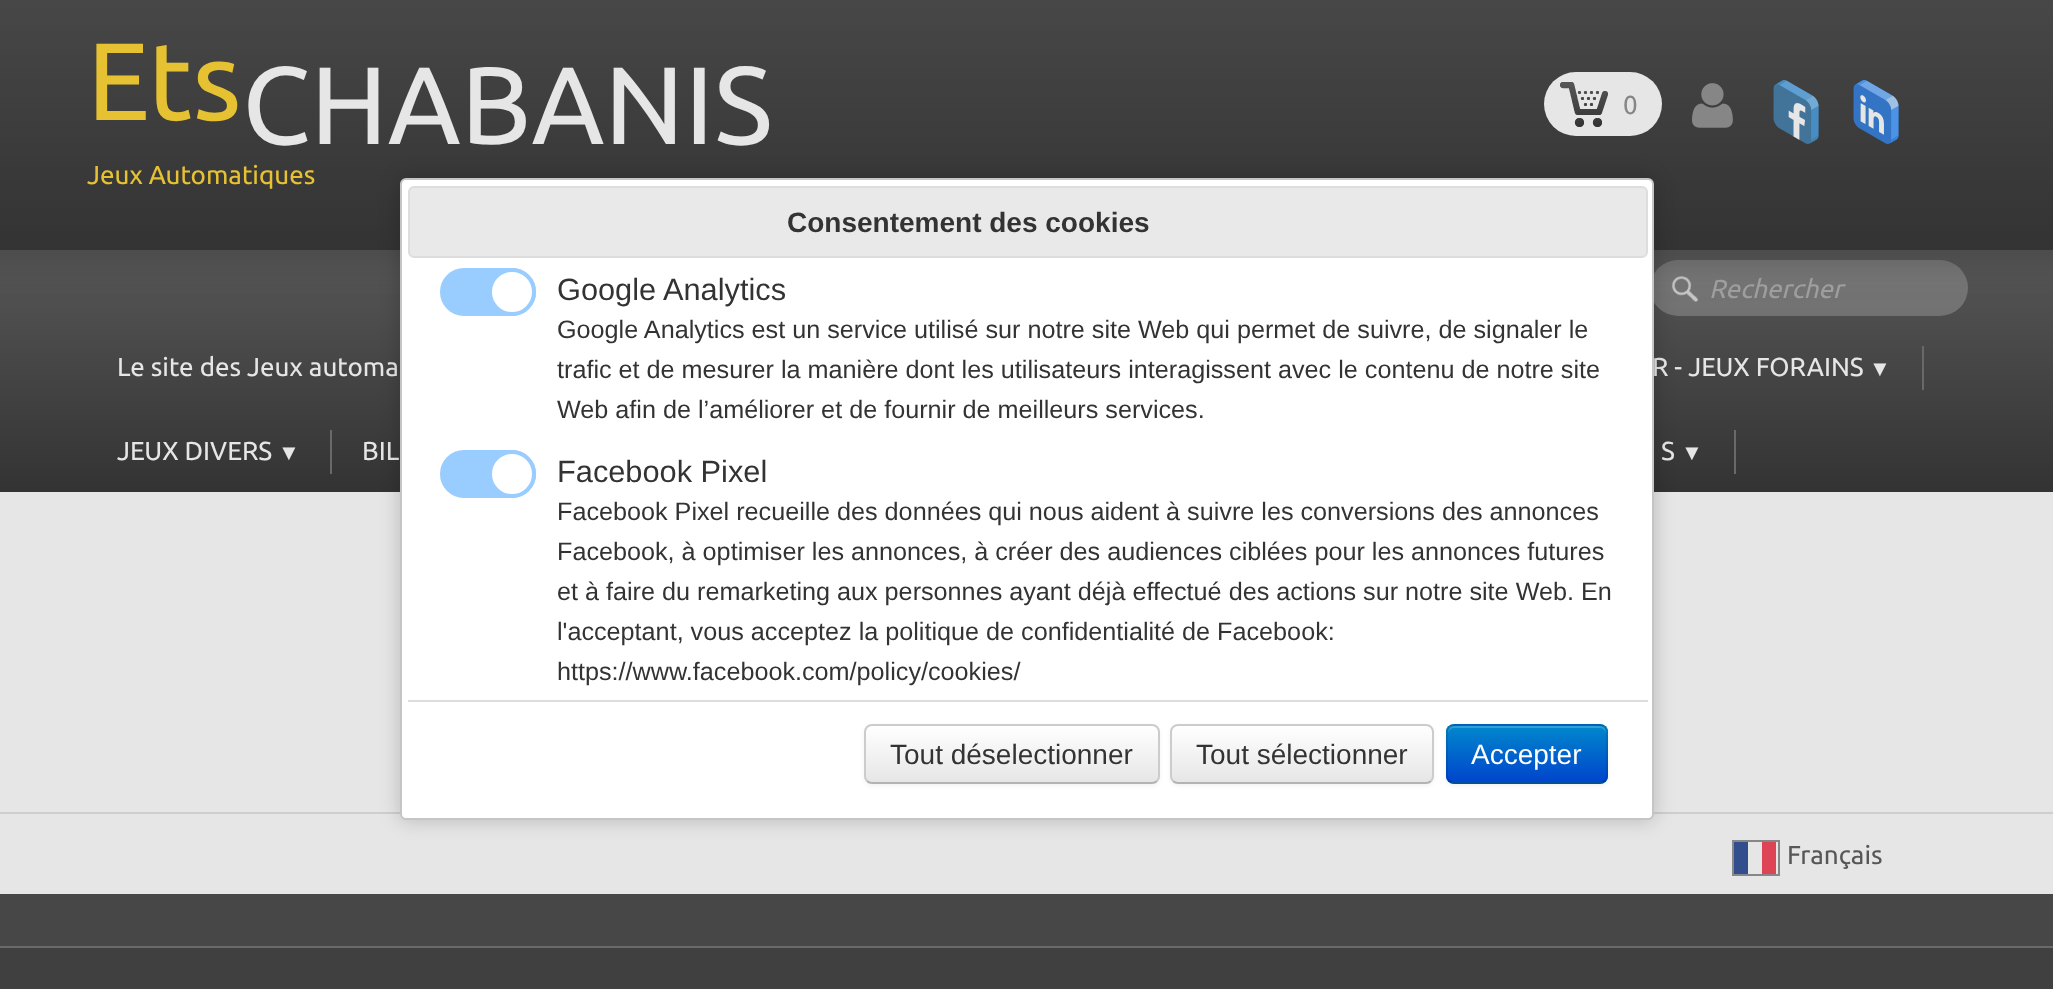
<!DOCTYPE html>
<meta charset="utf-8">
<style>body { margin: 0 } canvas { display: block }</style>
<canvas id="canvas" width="2053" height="989"></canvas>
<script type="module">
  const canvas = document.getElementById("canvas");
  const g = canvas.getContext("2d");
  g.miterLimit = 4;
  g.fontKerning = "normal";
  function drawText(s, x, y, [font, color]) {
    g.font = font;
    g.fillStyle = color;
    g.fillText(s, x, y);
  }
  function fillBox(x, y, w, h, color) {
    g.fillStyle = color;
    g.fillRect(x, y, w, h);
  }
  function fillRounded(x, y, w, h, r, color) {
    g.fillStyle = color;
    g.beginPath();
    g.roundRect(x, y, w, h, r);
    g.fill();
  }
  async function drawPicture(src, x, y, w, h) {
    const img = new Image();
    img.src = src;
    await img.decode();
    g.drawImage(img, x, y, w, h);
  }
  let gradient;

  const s1 = ["110px Ubuntu", "#E6C233"];
  const s2 = ["110px Ubuntu", "#E6E6E6"];
  const s3 = ["26px Ubuntu", "#E6C233"];
  const s4 = ["26px Ubuntu", "#868686"];
  const s5 = ["italic 26px Ubuntu", "#9E9E9E"];
  const s6 = ["26px Ubuntu", "#E6E6E6"];
  const s7 = ["22px Liberation Sans", "#E6E6E6"];
  const s8 = ["26px Ubuntu", "#575757"];
  const s9 = ["bold 28px Liberation Sans", "#333333"];
  const s10 = ["30.75px Liberation Sans", "#333333"];
  const s11 = ["25.2px Liberation Sans", "#333333"];
  const s12 = ["28px Liberation Sans", "#333333"];
  const s13 = ["28px Liberation Sans", "#FFFFFF"];

  fillBox(0, 0, 2053, 989, "#E6E6E6");
  gradient = g.createLinearGradient(1028, 250, 1028, 492);
  gradient.addColorStop(0, "#575757");
  gradient.addColorStop(1, "#333333");
  g.fillStyle = gradient;
  g.fillRect(0, 250, 2053, 242);
  fillRounded(1650, 260, 318, 56, 28, "rgba(230, 230, 230, 0.24)");
  await drawPicture("pic5.png", 1671, 276, 28, 26);
  g.fillStyle = "rgba(51, 51, 51, 0.5)";
  g.filter = "blur(20px)";
  g.beginPath();
  g.rect(-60, 4, 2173, 250);
  g.fill();
  g.filter = "none";
  gradient = g.createLinearGradient(1028, 0, 1028, 250);
  gradient.addColorStop(0, "#474747");
  gradient.addColorStop(1, "#333333");
  g.fillStyle = gradient;
  g.fillRect(0, 0, 2053, 250);
  drawText("Ets", 87, 120, s1);
  drawText("CHABANIS", 242, 144, s2);
  drawText("Jeux Automatiques", 87, 184, s3);
  fillRounded(1544, 72, 118, 64, 32, "#E6E6E6");
  await drawPicture("pic1.png", 1560, 82, 48, 45);
  drawText("0", 1623, 114, s4);
  await drawPicture("pic2.png", 1692, 83, 41, 45);
  await drawPicture("pic3.png", 1773, 80, 46, 64);
  await drawPicture("pic4.png", 1853, 80, 46, 64);
  drawText("Rechercher", 1709, 298, s5);
  drawText("Le site des Jeux automa", 117, 376, s6);
  fillBox(1922, 346, 2, 44, "#696969");
  drawText("R - JEUX FORAINS", 1652, 376, s6);
  drawText("▼", 1869, 376, s7);
  fillBox(330, 430, 2, 44, "#696969");
  drawText("JEUX DIVERS", 117, 460, s6);
  drawText("▼", 278, 460, s7);
  drawText("BIL", 362, 460, s6);
  fillBox(1734, 430, 2, 44, "#696969");
  drawText("S", 1661, 460, s6);
  drawText("▼", 1681, 460, s7);
  fillBox(0, 812, 2053, 2, "#CECECE");
  drawText("Français", 1787, 864, s8);
  g.strokeStyle = "#878787";
  g.lineWidth = 2;
  g.strokeRect(1733, 841, 46, 34);
  fillBox(1734, 842, 14, 32, "#334E8C");
  fillBox(1762, 842, 14, 32, "#DD4455");
  fillBox(0, 894, 2053, 52, "#474747");
  fillBox(0, 948, 2053, 41, "#404040");
  fillBox(0, 946, 2053, 2, "#696969");
  g.fillStyle = "rgba(0, 0, 0, 0.2)";
  g.filter = "blur(10px)";
  g.beginPath();
  g.roundRect(400, 178, 1254, 642, 6);
  g.fill();
  g.filter = "none";
  g.fillStyle = "#FFFFFF";
  g.beginPath();
  g.roundRect(401, 179, 1252, 640, 5);
  g.fill();
  g.strokeStyle = "#C5C5C5";
  g.stroke();
  g.fillStyle = "#E9E9E9";
  g.beginPath();
  g.roundRect(409, 187, 1238, 70, 5);
  g.fill();
  g.strokeStyle = "#DDDDDD";
  g.stroke();
  drawText("Consentement des cookies", 787, 232, s9);
  g.fillStyle = "#99CCFF";
  g.beginPath();
  g.roundRect(442, 270, 92, 44, 22);
  g.fill();
  g.strokeStyle = "#99CCFF";
  g.lineWidth = 4;
  g.stroke();
  g.fillStyle = "#FFFFFF";
  g.beginPath();
  g.arc(512, 292, 22, 0, Math.PI * 2);
  g.fill();
  g.stroke();
  drawText("Google Analytics", 557, 300, s10);
  drawText("Google Analytics est un service utilisé sur notre site Web qui permet de suivre, de signaler le", 557, 338, s11);
  drawText("trafic et de mesurer la manière dont les utilisateurs interagissent avec le contenu de notre site", 557, 378, s11);
  drawText("Web afin de l’améliorer et de fournir de meilleurs services.", 557, 418, s11);
  g.fillStyle = "#99CCFF";
  g.beginPath();
  g.roundRect(442, 452, 92, 44, 22);
  g.fill();
  g.stroke();
  g.fillStyle = "#FFFFFF";
  g.beginPath();
  g.arc(512, 474, 22, 0, Math.PI * 2);
  g.fill();
  g.stroke();
  drawText("Facebook Pixel", 557, 482, s10);
  drawText("Facebook Pixel recueille des données qui nous aident à suivre les conversions des annonces", 557, 520, s11);
  drawText("Facebook, à optimiser les annonces, à créer des audiences ciblées pour les annonces futures", 557, 560, s11);
  drawText("et à faire du remarketing aux personnes ayant déjà effectué des actions sur notre site Web. En", 557, 600, s11);
  drawText("l'acceptant, vous acceptez la politique de confidentialité de Facebook:", 557, 640, s11);
  drawText("https://www.facebook.com/policy/cookies/", 557, 680, s11);
  fillBox(408, 700, 1240, 2, "#DDDDDD");
  g.fillStyle = "rgba(0, 0, 0, 0.05)";
  g.filter = "blur(2px)";
  g.beginPath();
  g.roundRect(864, 726, 296, 60, 8);
  g.fill();
  g.filter = "none";
  g.save();
  g.beginPath();
  g.roundRect(864, 724, 296, 60, 8);
  g.clip();
  gradient = g.createLinearGradient(1012, 726, 1012, 782);
  gradient.addColorStop(0, "#FFFFFF");
  gradient.addColorStop(1, "#E6E6E6");
  g.fillStyle = gradient;
  g.fillRect(864, 726, 296, 56);
  g.restore();
  g.beginPath();
  g.moveTo(1157, 781);
  g.bezierCurveTo(1155.5, 782.5, 1154, 783, 1152, 783);
  g.lineTo(872, 783);
  g.bezierCurveTo(870, 783, 868.5, 782.5, 867, 781);
  g.strokeStyle = "#B3B3B3";
  g.lineWidth = 2;
  g.stroke();
  g.beginPath();
  g.moveTo(867, 781);
  g.bezierCurveTo(865.5, 779.5, 865, 778, 865, 776);
  g.lineTo(865, 732);
  g.bezierCurveTo(865, 730, 865.5, 728.5, 867, 727);
  g.bezierCurveTo(868.5, 725.5, 870, 725, 872, 725);
  g.lineTo(1152, 725);
  g.bezierCurveTo(1154, 725, 1155.5, 725.5, 1157, 727);
  g.bezierCurveTo(1158.5, 728.5, 1159, 730, 1159, 732);
  g.lineTo(1159, 776);
  g.bezierCurveTo(1159, 778, 1158.5, 779.5, 1157, 781);
  g.strokeStyle = "#CCCCCC";
  g.stroke();
  drawText("Tout déselectionner", 890, 764, s12);
  g.fillStyle = "rgba(0, 0, 0, 0.05)";
  g.filter = "blur(2px)";
  g.beginPath();
  g.roundRect(1170, 726, 264, 60, 8);
  g.fill();
  g.filter = "none";
  g.save();
  g.beginPath();
  g.roundRect(1170, 724, 264, 60, 8);
  g.clip();
  gradient = g.createLinearGradient(1302, 726, 1302, 782);
  gradient.addColorStop(0, "#FFFFFF");
  gradient.addColorStop(1, "#E6E6E6");
  g.fillStyle = gradient;
  g.fillRect(1170, 726, 264, 56);
  g.restore();
  g.beginPath();
  g.moveTo(1431, 781);
  g.bezierCurveTo(1429.5, 782.5, 1428, 783, 1426, 783);
  g.lineTo(1178, 783);
  g.bezierCurveTo(1176, 783, 1174.5, 782.5, 1173, 781);
  g.strokeStyle = "#B3B3B3";
  g.stroke();
  g.beginPath();
  g.moveTo(1173, 781);
  g.bezierCurveTo(1171.5, 779.5, 1171, 778, 1171, 776);
  g.lineTo(1171, 732);
  g.bezierCurveTo(1171, 730, 1171.5, 728.5, 1173, 727);
  g.bezierCurveTo(1174.5, 725.5, 1176, 725, 1178, 725);
  g.lineTo(1426, 725);
  g.bezierCurveTo(1428, 725, 1429.5, 725.5, 1431, 727);
  g.bezierCurveTo(1432.5, 728.5, 1433, 730, 1433, 732);
  g.lineTo(1433, 776);
  g.bezierCurveTo(1433, 778, 1432.5, 779.5, 1431, 781);
  g.strokeStyle = "#CCCCCC";
  g.stroke();
  drawText("Tout sélectionner", 1196, 764, s12);
  g.fillStyle = "rgba(0, 0, 0, 0.05)";
  g.filter = "blur(2px)";
  g.beginPath();
  g.roundRect(1446, 726, 162, 60, 8);
  g.fill();
  g.filter = "none";
  fillRounded(1446, 724, 162, 60, 8, "#006DCC");
  g.save();
  g.beginPath();
  g.roundRect(1446, 724, 162, 60, 8);
  g.clip();
  gradient = g.createLinearGradient(1527, 726, 1527, 782);
  gradient.addColorStop(0, "#0088CC");
  gradient.addColorStop(1, "#0044CC");
  g.fillStyle = gradient;
  g.fillRect(1446, 726, 162, 56);
  g.restore();
  g.fillStyle = "rgba(255, 255, 255, 0.2)";
  g.beginPath();
  g.moveTo(1454, 728);
  g.lineTo(1600, 728);
  g.bezierCurveTo(1603, 728, 1606, 731, 1606, 734);
  g.lineTo(1606, 732);
  g.bezierCurveTo(1606, 729, 1603, 726, 1600, 726);
  g.lineTo(1454, 726);
  g.bezierCurveTo(1451, 726, 1448, 729, 1448, 732);
  g.lineTo(1448, 734);
  g.bezierCurveTo(1448, 731, 1451, 728, 1454, 728);
  g.closePath();
  g.fill();
  g.beginPath();
  g.moveTo(1605, 781);
  g.bezierCurveTo(1603.5, 782.5, 1602, 783, 1600, 783);
  g.lineTo(1454, 783);
  g.bezierCurveTo(1452, 783, 1450.5, 782.5, 1449, 781);
  g.strokeStyle = "rgba(0, 0, 0, 0.25)";
  g.stroke();
  g.beginPath();
  g.moveTo(1449, 781);
  g.bezierCurveTo(1446, 778, 1447, 772.5, 1447, 768.5);
  g.lineTo(1447, 754);
  g.bezierCurveTo(1447, 720, 1442.5, 725, 1478.5, 725);
  g.lineTo(1575.5, 725);
  g.bezierCurveTo(1611.5, 725, 1607, 720, 1607, 754);
  g.lineTo(1607, 768.5);
  g.bezierCurveTo(1607, 772.5, 1608, 778, 1605, 781);
  g.strokeStyle = "rgba(0, 0, 0, 0.1)";
  g.stroke();
  drawText("Accepter", 1471, 764, s13);
</script>
